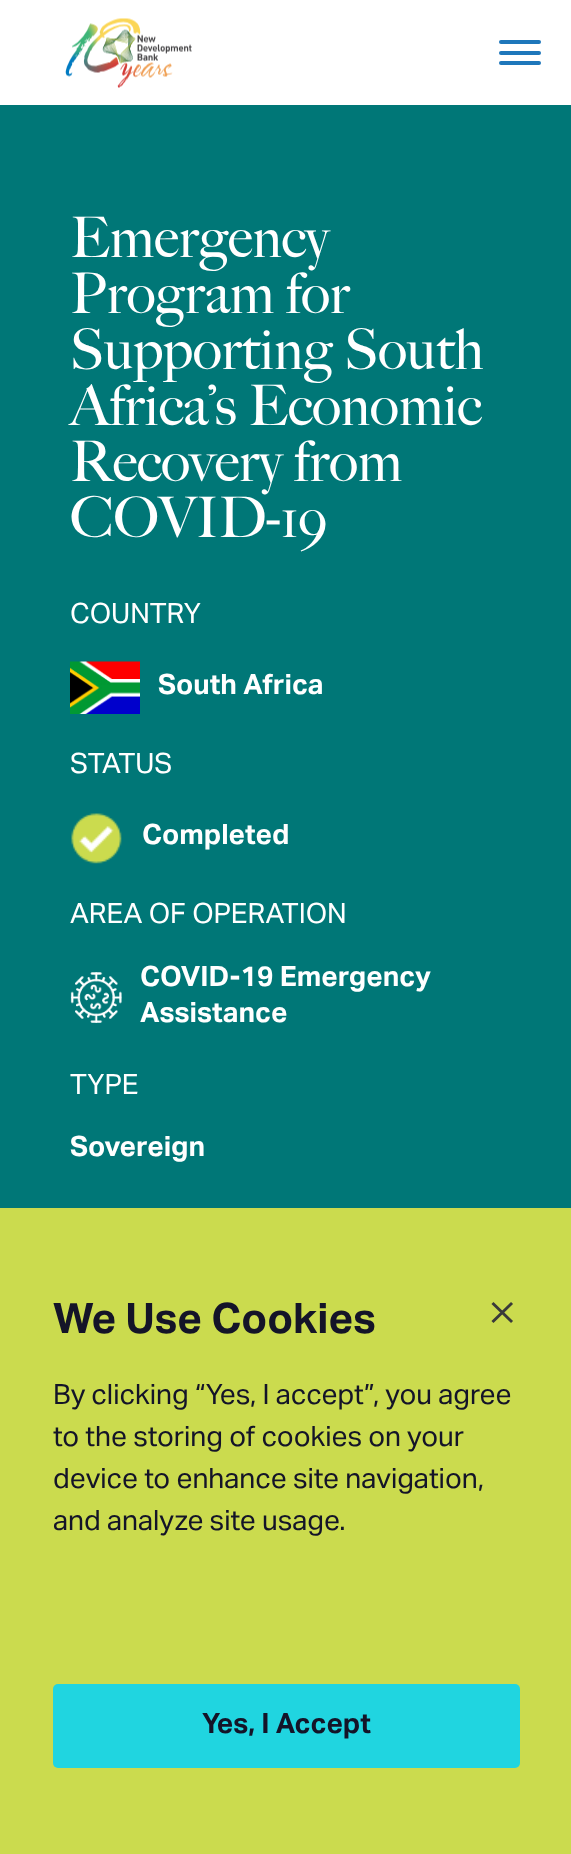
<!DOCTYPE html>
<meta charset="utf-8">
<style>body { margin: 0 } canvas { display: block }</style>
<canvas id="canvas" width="571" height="1854"></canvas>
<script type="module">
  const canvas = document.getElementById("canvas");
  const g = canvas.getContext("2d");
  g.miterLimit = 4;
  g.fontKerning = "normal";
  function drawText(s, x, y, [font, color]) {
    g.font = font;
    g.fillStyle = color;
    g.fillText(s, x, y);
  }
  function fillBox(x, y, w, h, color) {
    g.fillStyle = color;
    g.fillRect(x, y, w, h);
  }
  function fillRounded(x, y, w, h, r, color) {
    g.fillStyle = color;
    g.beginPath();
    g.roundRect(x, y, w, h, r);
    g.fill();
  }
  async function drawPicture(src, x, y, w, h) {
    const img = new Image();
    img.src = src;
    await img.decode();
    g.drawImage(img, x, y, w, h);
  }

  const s1 = ["500 56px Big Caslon", "#FFFFFF"];
  const s2 = ["28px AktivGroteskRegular", "#FFFFFF"];
  const s3 = ["bold 28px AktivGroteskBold", "#FFFFFF"];
  const s4 = ["bold 42px AktivGroteskBold", "#141428"];
  const s5 = ["28px AktivGroteskRegular", "#141428"];
  const s6 = ["bold 28px AktivGroteskBold", "#141428"];

  fillBox(0, 0, 571, 1854, "#007777");
  fillBox(0, 0, 571, 105, "#FFFFFF");
  fillRounded(499, 40, 42, 4, 2, "#1E77BB");
  fillRounded(499, 51, 42, 4, 2, "#1E77BB");
  fillRounded(499, 61, 42, 4, 2, "#1E77BB");
  await drawPicture("pic1.png", 65, 18, 127, 70);
  drawText("Emergency", 70, 257, s1);
  drawText("Program for", 70, 313, s1);
  drawText("Supporting South", 70, 369, s1);
  drawText("Africa’s Economic", 70, 425, s1);
  drawText("Recovery from", 70, 481, s1);
  drawText("COVID-19", 70, 537, s1);
  drawText("COUNTRY", 70, 623, s2);
  await drawPicture("pic2.png", 70, 661, 70, 53);
  drawText("South Africa", 158, 694, s3);
  drawText("STATUS", 70, 773, s2);
  await drawPicture("pic3.png", 71, 813, 51, 51);
  drawText("Completed", 142, 844, s3);
  drawText("AREA OF OPERATION", 70, 923, s2);
  await drawPicture("pic4.png", 70, 972, 52, 51);
  drawText("COVID-19 Emergency", 140, 986, s3);
  drawText("Assistance", 140, 1022, s3);
  drawText("TYPE", 70, 1094, s2);
  drawText("Sovereign", 70, 1156, s3);
  fillBox(0, 1208, 571, 646, "#CBDB4E");
  drawText("We Use Cookies", 53, 1333, s4);
  drawText("By clicking “Yes, I accept”, you agree", 53, 1404, s5);
  drawText("to the storing of cookies on your", 53, 1446, s5);
  drawText("device to enhance site navigation,", 53, 1488, s5);
  drawText("and analyze site usage.", 53, 1530, s5);
  g.beginPath();
  g.moveTo(511, 1304);
  g.lineTo(493.5, 1321);
  g.moveTo(493.5, 1304);
  g.lineTo(511, 1321);
  g.strokeStyle = "#3A3A3A";
  g.lineWidth = 2.9;
  g.lineCap = "square";
  g.stroke();
  fillRounded(53, 1684, 467, 84, 5, "#20D5E0");
  drawText("Yes, I Accept", 202, 1733, s6);
</script>
